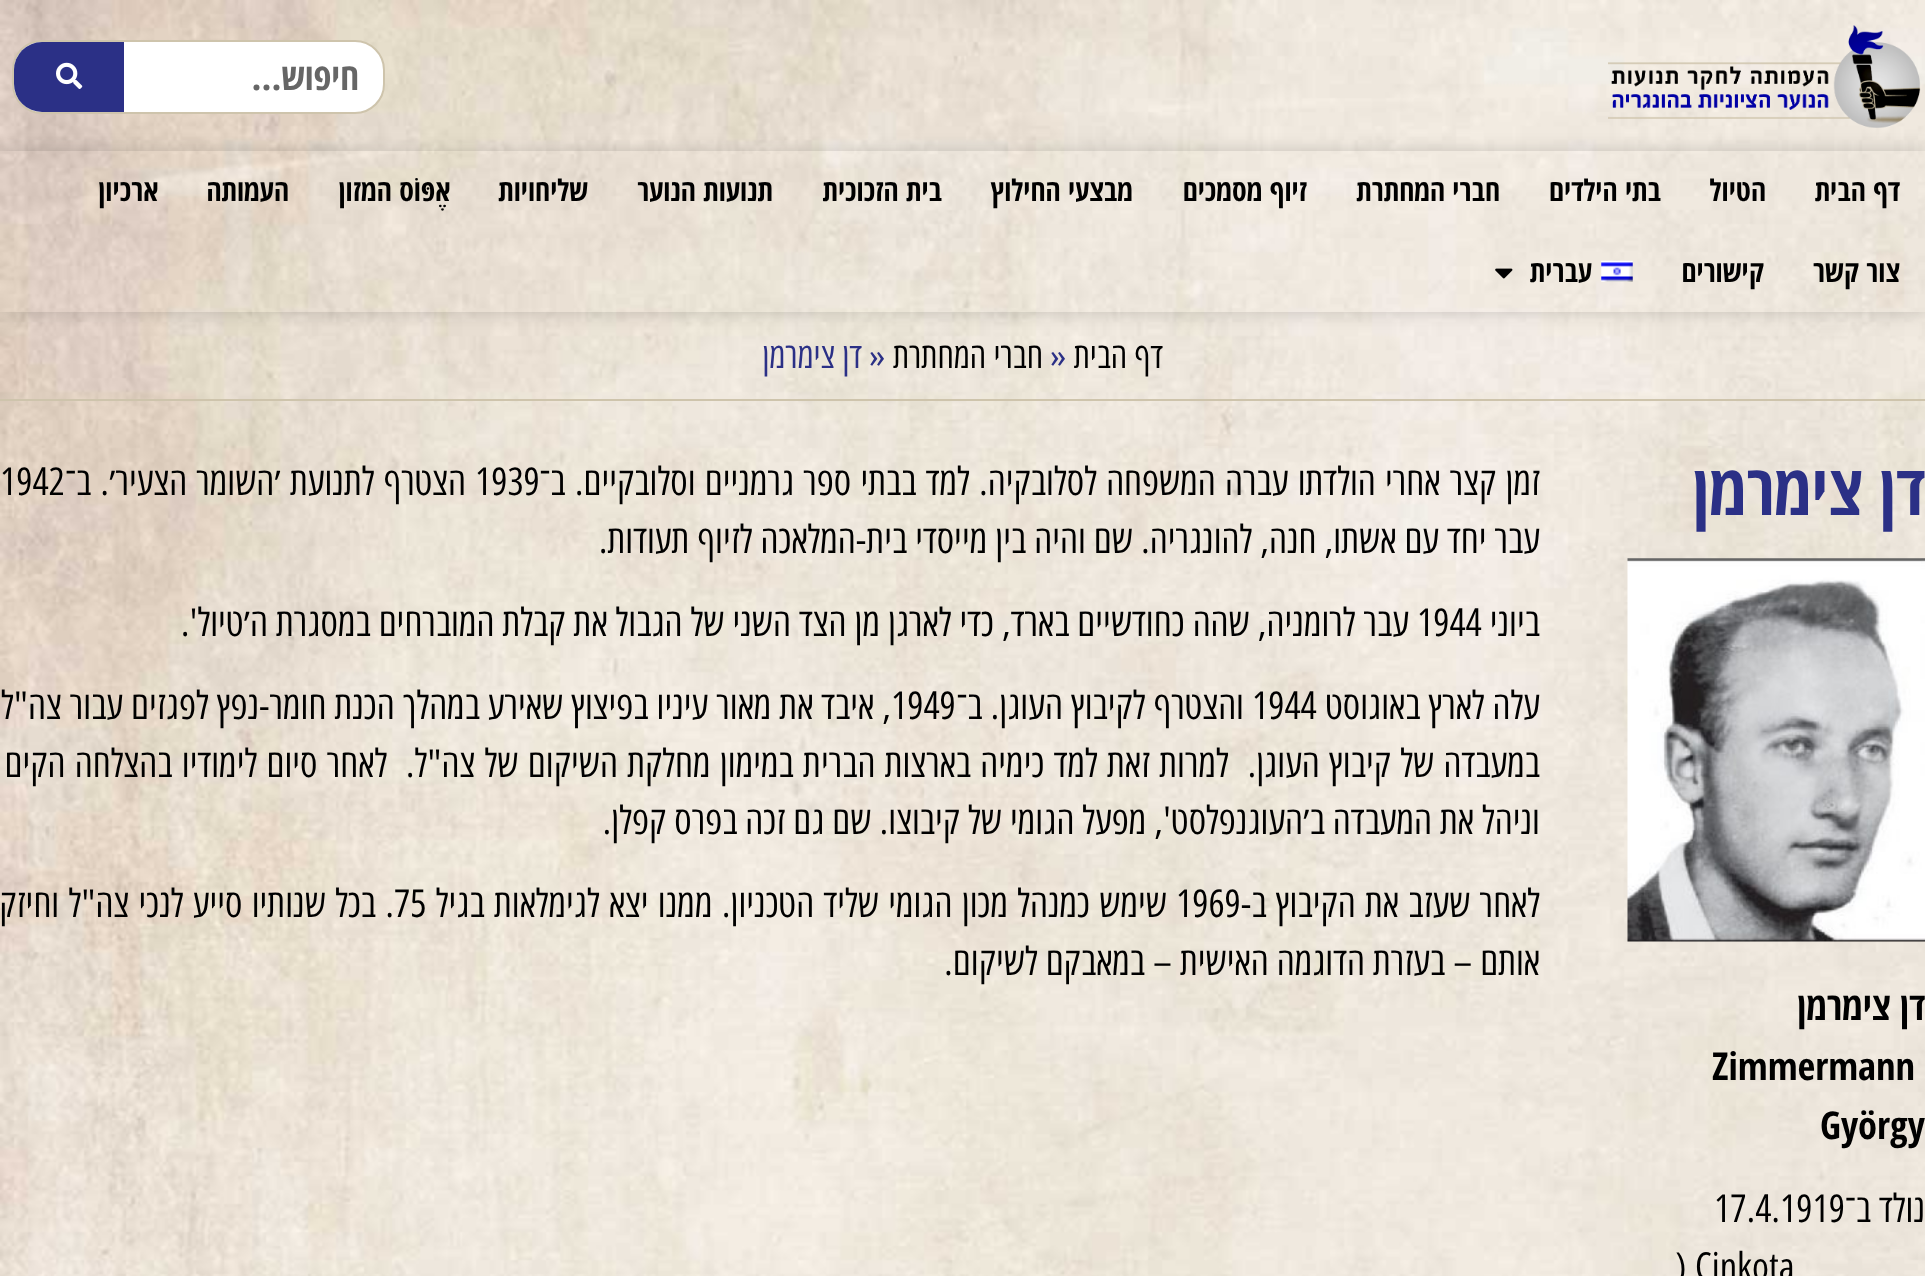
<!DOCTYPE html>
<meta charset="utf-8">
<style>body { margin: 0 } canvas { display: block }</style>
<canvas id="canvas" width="1925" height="1276"></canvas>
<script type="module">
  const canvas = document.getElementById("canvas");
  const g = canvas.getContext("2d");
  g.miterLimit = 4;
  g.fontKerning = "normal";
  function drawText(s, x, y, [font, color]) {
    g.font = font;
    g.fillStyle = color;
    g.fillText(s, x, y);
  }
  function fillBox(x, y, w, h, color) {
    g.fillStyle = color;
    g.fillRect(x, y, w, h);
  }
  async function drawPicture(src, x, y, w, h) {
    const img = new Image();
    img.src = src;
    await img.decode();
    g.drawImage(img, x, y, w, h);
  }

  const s1 = ["bold 37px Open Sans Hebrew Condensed", "#666666"];
  const s2 = ["bold 29.75px Open Sans Hebrew Condensed", "#000000"];
  const s3 = ["35px Open Sans Hebrew Condensed", "#000000"];
  const s4 = ["35px Open Sans Hebrew Condensed", "#2B3086"];
  const s5 = ["bold 70px Open Sans Hebrew Condensed", "#2B3086"];
  const s6 = ["bold 38.5px Open Sans Hebrew Condensed", "#000000"];
  const s7 = ["38.5px Open Sans Hebrew Condensed", "#000000"];

  fillBox(0, 0, 1925, 1276, "#FFFFFF");
  await drawPicture("pic1.png", 0, 0, 1925, 1276);
  await drawPicture("pic2.png", 1608, 25, 313, 103);
  g.beginPath();
  g.roundRect(13, 41, 371, 72, 29);
  g.fill();
  g.strokeStyle = "#CEC4AC";
  g.lineWidth = 2;
  g.stroke();
  g.direction = "rtl";
  drawText("חיפוש...", 359, 90, s1);
  g.fillStyle = "#2B3086";
  g.beginPath();
  g.roundRect(14, 42, 110, 70, [28, 0, 0, 28]);
  g.fill();
  await drawPicture("pic3.png", 56, 62, 27, 27);
  g.save();
  g.beginPath();
  g.moveTo(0, 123);
  g.lineTo(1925, 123);
  g.lineTo(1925, 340);
  g.lineTo(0, 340);
  g.closePath();
  g.moveTo(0, 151);
  g.lineTo(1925, 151);
  g.lineTo(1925, 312);
  g.lineTo(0, 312);
  g.closePath();
  g.clip("evenodd");
  g.fillStyle = "rgba(0, 0, 0, 0.17)";
  g.filter = "blur(9px)";
  g.beginPath();
  g.rect(0, 151, 1925, 161);
  g.fill();
  g.filter = "none";
  g.restore();
  drawText("דף הבית", 1900, 201, s2);
  drawText("הטיול", 1766, 201, s2);
  drawText("בתי הילדים", 1661, 201, s2);
  drawText("חברי המחתרת", 1500, 201, s2);
  drawText("זיוף מסמכים", 1307, 201, s2);
  drawText("מבצעי החילוץ", 1133, 201, s2);
  drawText("בית הזכוכית", 942, 201, s2);
  drawText("תנועות הנוער", 773, 201, s2);
  drawText("שליחויות", 588, 201, s2);
  drawText("אֶפּוֹס המזון", 450, 201, s2);
  drawText("העמותה", 289, 201, s2);
  drawText("ארכיון", 158, 201, s2);
  drawText("צור קשר", 1900, 282, s2);
  drawText("קישורים", 1764, 282, s2);
  await drawPicture("pic4.png", 1601, 260, 32, 22);
  drawText("עברית", 1592, 282, s2);
  await drawPicture("pic5.png", 1495, 268, 18, 11);
  fillBox(0, 399, 1925, 2, "#CEC4AC");
  drawText("דף הבית", 1163, 368, s3);
  g.direction = "ltr";
  drawText("»", 1050, 368, s4);
  g.direction = "rtl";
  drawText("חברי המחתרת", 1043, 368, s3);
  g.direction = "ltr";
  drawText("»", 869, 368, s4);
  g.direction = "rtl";
  drawText("דן צימרמן", 862, 368, s4);
  drawText("דן צימרמן", 1925, 515, s5);
  await drawPicture("pic6.png", 1627, 558, 298, 384);
  drawText("דן צימרמן", 1925, 1020, s6);
  g.direction = "ltr";
  drawText("Zimmermann", 1712, 1080, s6);
  drawText("György", 1820, 1139, s6);
  g.direction = "rtl";
  drawText("נולד ב־", 1925, 1222, s7);
  g.direction = "ltr";
  drawText("17.4.1919", 1714, 1222, s7);
  drawText("Cinkota", 1695, 1280, s7);
  drawText(")", 1675, 1280, s7);
  g.wordSpacing = "1.25px";
  g.direction = "rtl";
  drawText("זמן קצר אחרי הולדתו עברה המשפחה לסלובקיה. למד בבתי ספר גרמניים וסלובקיים. ב־", 1540, 495, s7);
  g.wordSpacing = "0px";
  g.direction = "ltr";
  drawText("1939", 475, 495, s7);
  g.wordSpacing = "1px";
  g.direction = "rtl";
  drawText("הצטרף לתנועת ׳השומר הצעיר׳. ב־", 466, 495, s7);
  g.wordSpacing = "0px";
  g.direction = "ltr";
  drawText("1942", 0, 495, s7);
  g.direction = "rtl";
  drawText("עבר יחד עם אשתו, חנה, להונגריה. שם והיה בין מייסדי בית-המלאכה לזיוף תעודות.", 1540, 553, s7);
  drawText("ביוני", 1540, 636, s7);
  g.direction = "ltr";
  drawText("1944", 1417, 636, s7);
  g.direction = "rtl";
  drawText("עבר לרומניה, שהה כחודשיים בארד, כדי לארגן מן הצד השני של הגבול את קבלת המוברחים במסגרת ה׳טיול'.", 1409, 636, s7);
  drawText("עלה לארץ באוגוסט", 1540, 719, s7);
  g.direction = "ltr";
  drawText("1944", 1252, 719, s7);
  g.direction = "rtl";
  drawText("והצטרף לקיבוץ העוגן. ב־", 1244, 719, s7);
  g.direction = "ltr";
  drawText("1949", 891, 719, s7);
  g.direction = "rtl";
  drawText(", איבד את מאור עיניו בפיצוץ שאירע במהלך הכנת חומר-נפץ לפגזים עבור צה\"ל", 891, 719, s7);
  g.wordSpacing = "1.3px";
  drawText("במעבדה של קיבוץ העוגן.  למרות זאת למד כימיה בארצות הברית במימון מחלקת השיקום של צה\"ל.  לאחר סיום לימודיו בהצלחה הקים", 1540, 777, s7);
  g.wordSpacing = "0px";
  drawText("וניהל את המעבדה ב׳העוגנפלסט', מפעל הגומי של קיבוצו. שם גם זכה בפרס קפלן.", 1540, 834, s7);
  g.wordSpacing = "1.25px";
  drawText("לאחר שעזב את הקיבוץ ב-", 1540, 917, s7);
  g.wordSpacing = "0px";
  g.direction = "ltr";
  drawText("1969", 1176, 917, s7);
  g.wordSpacing = "1.25px";
  g.direction = "rtl";
  drawText("שימש כמנהל מכון הגומי שליד הטכניון. ממנו יצא לגימלאות בגיל", 1167, 917, s7);
  g.wordSpacing = "0px";
  g.direction = "ltr";
  drawText("75", 394, 917, s7);
  g.wordSpacing = "1.25px";
  g.direction = "rtl";
  drawText(". בכל שנותיו סייע לנכי צה\"ל וחיזק", 394, 917, s7);
  g.wordSpacing = "0px";
  drawText("אותם – בעזרת הדוגמה האישית – במאבקם לשיקום.", 1540, 975, s7);
</script>
